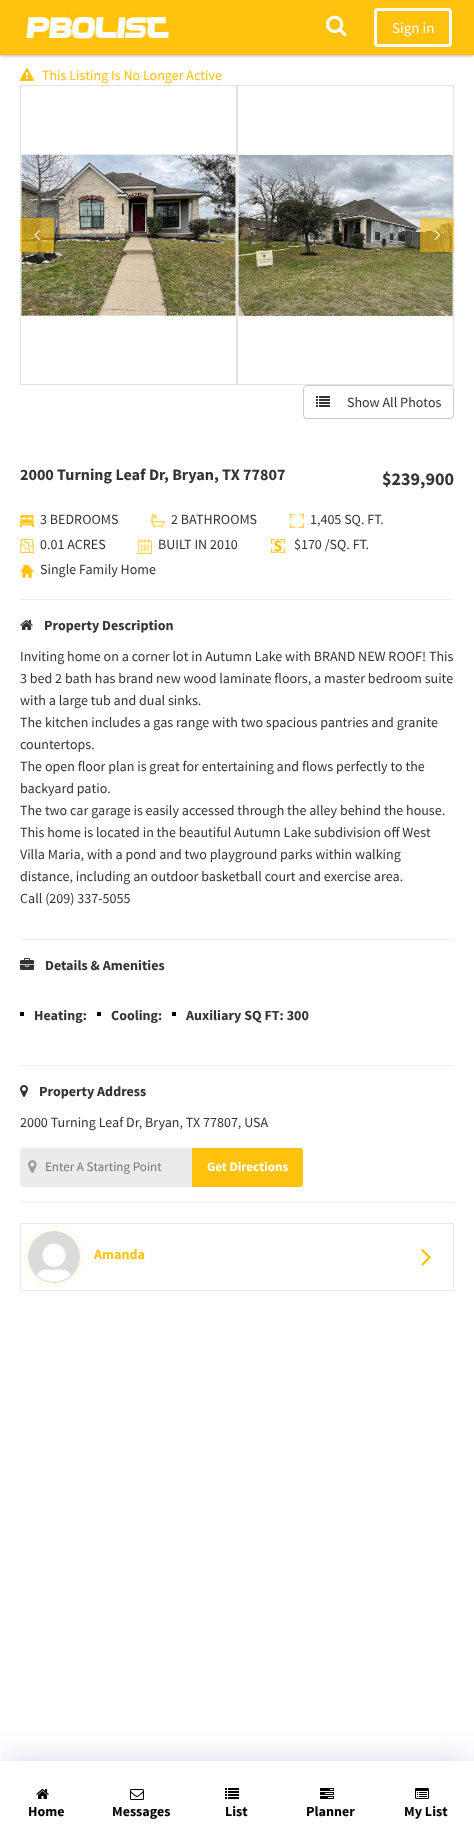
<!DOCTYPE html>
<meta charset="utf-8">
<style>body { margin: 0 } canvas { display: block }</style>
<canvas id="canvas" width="474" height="1846"></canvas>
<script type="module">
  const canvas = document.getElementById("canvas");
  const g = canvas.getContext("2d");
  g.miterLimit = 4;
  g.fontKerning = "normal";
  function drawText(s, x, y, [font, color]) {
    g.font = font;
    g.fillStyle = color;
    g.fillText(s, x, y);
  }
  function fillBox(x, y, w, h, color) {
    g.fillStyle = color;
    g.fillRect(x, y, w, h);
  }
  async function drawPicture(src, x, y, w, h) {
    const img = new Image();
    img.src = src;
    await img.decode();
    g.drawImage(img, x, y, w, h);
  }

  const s1 = ["15px Source Sans Pro", "#FFFFFF"];
  const s2 = ["14px Source Sans Pro", "#FFC20F"];
  const s3 = ["14px Source Sans Pro", "#333333"];
  const s4 = ["bold 16px Source Sans Pro", "#333333"];
  const s5 = ["bold 18px Source Sans Pro", "#333333"];
  const s6 = ["bold 14px Source Sans Pro", "#333333"];
  const s7 = ["13px Source Sans Pro", "#757575"];
  const s8 = ["bold 13px Source Sans Pro", "#FFFFFF"];
  const s9 = ["bold 14px Source Sans Pro", "#FFC20F"];
  const s10 = ["bold 14px Source Sans Pro", "#000000"];

  fillBox(0, 0, 474, 1846, "#FFFFFF");
  g.fillStyle = "rgba(50, 50, 50, 0.35)";
  g.filter = "blur(1.5px)";
  g.beginPath();
  g.rect(0, 1, 474, 55);
  g.fill();
  g.filter = "none";
  fillBox(0, 0, 474, 55, "#FFC20F");
  await drawPicture("pic1.png", 25, 15, 144, 24);
  await drawPicture("pic2.png", 326, 15, 21, 22);
  g.beginPath();
  g.roundRect(375.5, 9.5, 75, 36, 2.5);
  g.strokeStyle = "#FFFFFF";
  g.lineWidth = 3;
  g.stroke();
  drawText("Sign in", 392, 33, s1);
  await drawPicture("pic3.png", 20, 68, 14, 13);
  drawText("This Listing Is No Longer Active", 42, 80, s2);
  g.strokeStyle = "#E2E2E2";
  g.lineWidth = 1;
  g.strokeRect(20.5, 85.5, 216, 299);
  await drawPicture("pic4.png", 21, 154, 215, 162);
  g.strokeRect(237.5, 85.5, 216, 299);
  await drawPicture("pic5.png", 238, 154, 215, 162);
  fillBox(20, 218, 34, 34, "rgba(255, 194, 15, 0.6)");
  await drawPicture("pic6.png", 34, 230, 6, 10);
  fillBox(420, 218, 34, 34, "rgba(255, 194, 15, 0.6)");
  await drawPicture("pic7.png", 434, 230, 6, 10);
  g.beginPath();
  g.roundRect(303.5, 385.5, 150, 33, 3.5);
  g.strokeStyle = "#CCCCCC";
  g.stroke();
  await drawPicture("pic8.png", 316, 396, 14, 11);
  drawText("Show All Photos", 347, 407, s3);
  drawText("2000 Turning Leaf Dr, Bryan, TX 77807", 20, 480, s4);
  drawText("$239,900", 382, 485, s5);
  await drawPicture("pic9.png", 20, 515, 14, 12);
  drawText("3 BEDROOMS", 40, 524, s3);
  await drawPicture("pic10.png", 151, 514, 14, 14);
  drawText("2 BATHROOMS", 171, 524, s3);
  await drawPicture("pic11.png", 290, 514, 14, 14);
  drawText("1,405 SQ. FT.", 310, 524, s3);
  await drawPicture("pic12.png", 20, 539, 14, 14);
  drawText("0.01 ACRES", 40, 549, s3);
  await drawPicture("pic13.png", 138, 539, 14, 15);
  drawText("BUILT IN 2010", 158, 549, s3);
  await drawPicture("pic14.png", 271, 539, 14, 14);
  drawText("$170 /SQ. FT.", 294, 549, s3);
  await drawPicture("pic15.png", 20, 564, 14, 14);
  drawText("Single Family Home", 40, 574, s3);
  fillBox(20, 599, 434, 1, "#EEEEEE");
  await drawPicture("pic16.png", 20, 620, 13, 10);
  drawText("Property Description", 44, 630, s6);
  drawText("Inviting home on a corner lot in Autumn Lake with BRAND NEW ROOF! This", 20, 661, s3);
  drawText("3 bed 2 bath has brand new wood laminate floors, a master bedroom suite", 20, 683, s3);
  drawText("with a large tub and dual sinks.", 20, 705, s3);
  drawText("The kitchen includes a gas range with two spacious pantries and granite", 20, 727, s3);
  drawText("countertops.", 20, 749, s3);
  drawText("The open floor plan is great for entertaining and flows perfectly to the", 20, 771, s3);
  drawText("backyard patio.", 20, 793, s3);
  drawText("The two car garage is easily accessed through the alley behind the house.", 20, 815, s3);
  drawText("This home is located in the beautiful Autumn Lake subdivision off West", 20, 837, s3);
  drawText("Villa Maria, with a pond and two playground parks within walking", 20, 859, s3);
  drawText("distance, including an outdoor basketball court and exercise area.", 20, 881, s3);
  drawText("Call (209) 337-5055", 20, 903, s3);
  fillBox(20, 939, 434, 1, "#EEEEEE");
  await drawPicture("pic17.png", 20, 958, 14, 12);
  drawText("Details & Amenities", 45, 970, s6);
  fillBox(20, 1012, 4, 4, "#000000");
  drawText("Heating:", 34, 1020, s6);
  fillBox(97, 1012, 4, 4, "#000000");
  drawText("Cooling:", 111, 1020, s6);
  fillBox(172, 1012, 4, 4, "#000000");
  drawText("Auxiliary SQ FT: 300", 186, 1020, s6);
  fillBox(20, 1065, 434, 1, "#EEEEEE");
  await drawPicture("pic18.png", 20, 1085, 8, 12);
  drawText("Property Address", 39, 1096, s6);
  drawText("2000 Turning Leaf Dr, Bryan, TX 77807, USA", 20, 1127, s3);
  g.fillStyle = "#EBEBEB";
  g.beginPath();
  g.roundRect(20, 1148, 172, 39, [3, 0, 0, 3]);
  g.fill();
  await drawPicture("pic19.png", 28, 1160, 9, 13);
  drawText("Enter A Starting Point", 45, 1171, s7);
  g.fillStyle = "#FFC20F";
  g.beginPath();
  g.roundRect(192, 1148, 111, 39, [0, 3, 3, 0]);
  g.fill();
  drawText("Get Directions", 207, 1171, s8);
  fillBox(20, 1202, 434, 1, "#EEEEEE");
  g.strokeStyle = "#EBEBEB";
  g.strokeRect(20.5, 1223.5, 433, 67);
  g.fillStyle = "#F8F4D9";
  g.beginPath();
  g.arc(54, 1257, 28, 0, Math.PI * 2);
  g.fill();
  g.strokeStyle = "#FFFDF1";
  g.lineWidth = 4;
  g.stroke();
  await drawPicture("pic20.png", 28, 1231, 52, 52);
  drawText("Amanda", 94, 1259, s9);
  await drawPicture("pic21.png", 421, 1249, 10, 17);
  g.save();
  g.beginPath();
  g.rect(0, 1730, 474, 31);
  g.clip();
  g.fillStyle = "#D7D8E9";
  g.filter = "blur(15px)";
  g.beginPath();
  g.rect(0, 1761, 474, 85);
  g.fill();
  g.filter = "none";
  g.restore();
  await drawPicture("pic22.png", 36, 1789, 13, 10);
  drawText("Home", 28, 1816, s10);
  await drawPicture("pic23.png", 130, 1789, 14, 11);
  drawText("Messages", 112, 1816, s10);
  await drawPicture("pic24.png", 225, 1788, 14, 11);
  drawText("List", 225, 1816, s10);
  await drawPicture("pic25.png", 320, 1788, 14, 11);
  drawText("Planner", 306, 1816, s10);
  await drawPicture("pic26.png", 415, 1788, 14, 11);
  drawText("My List", 404, 1816, s10);
</script>
